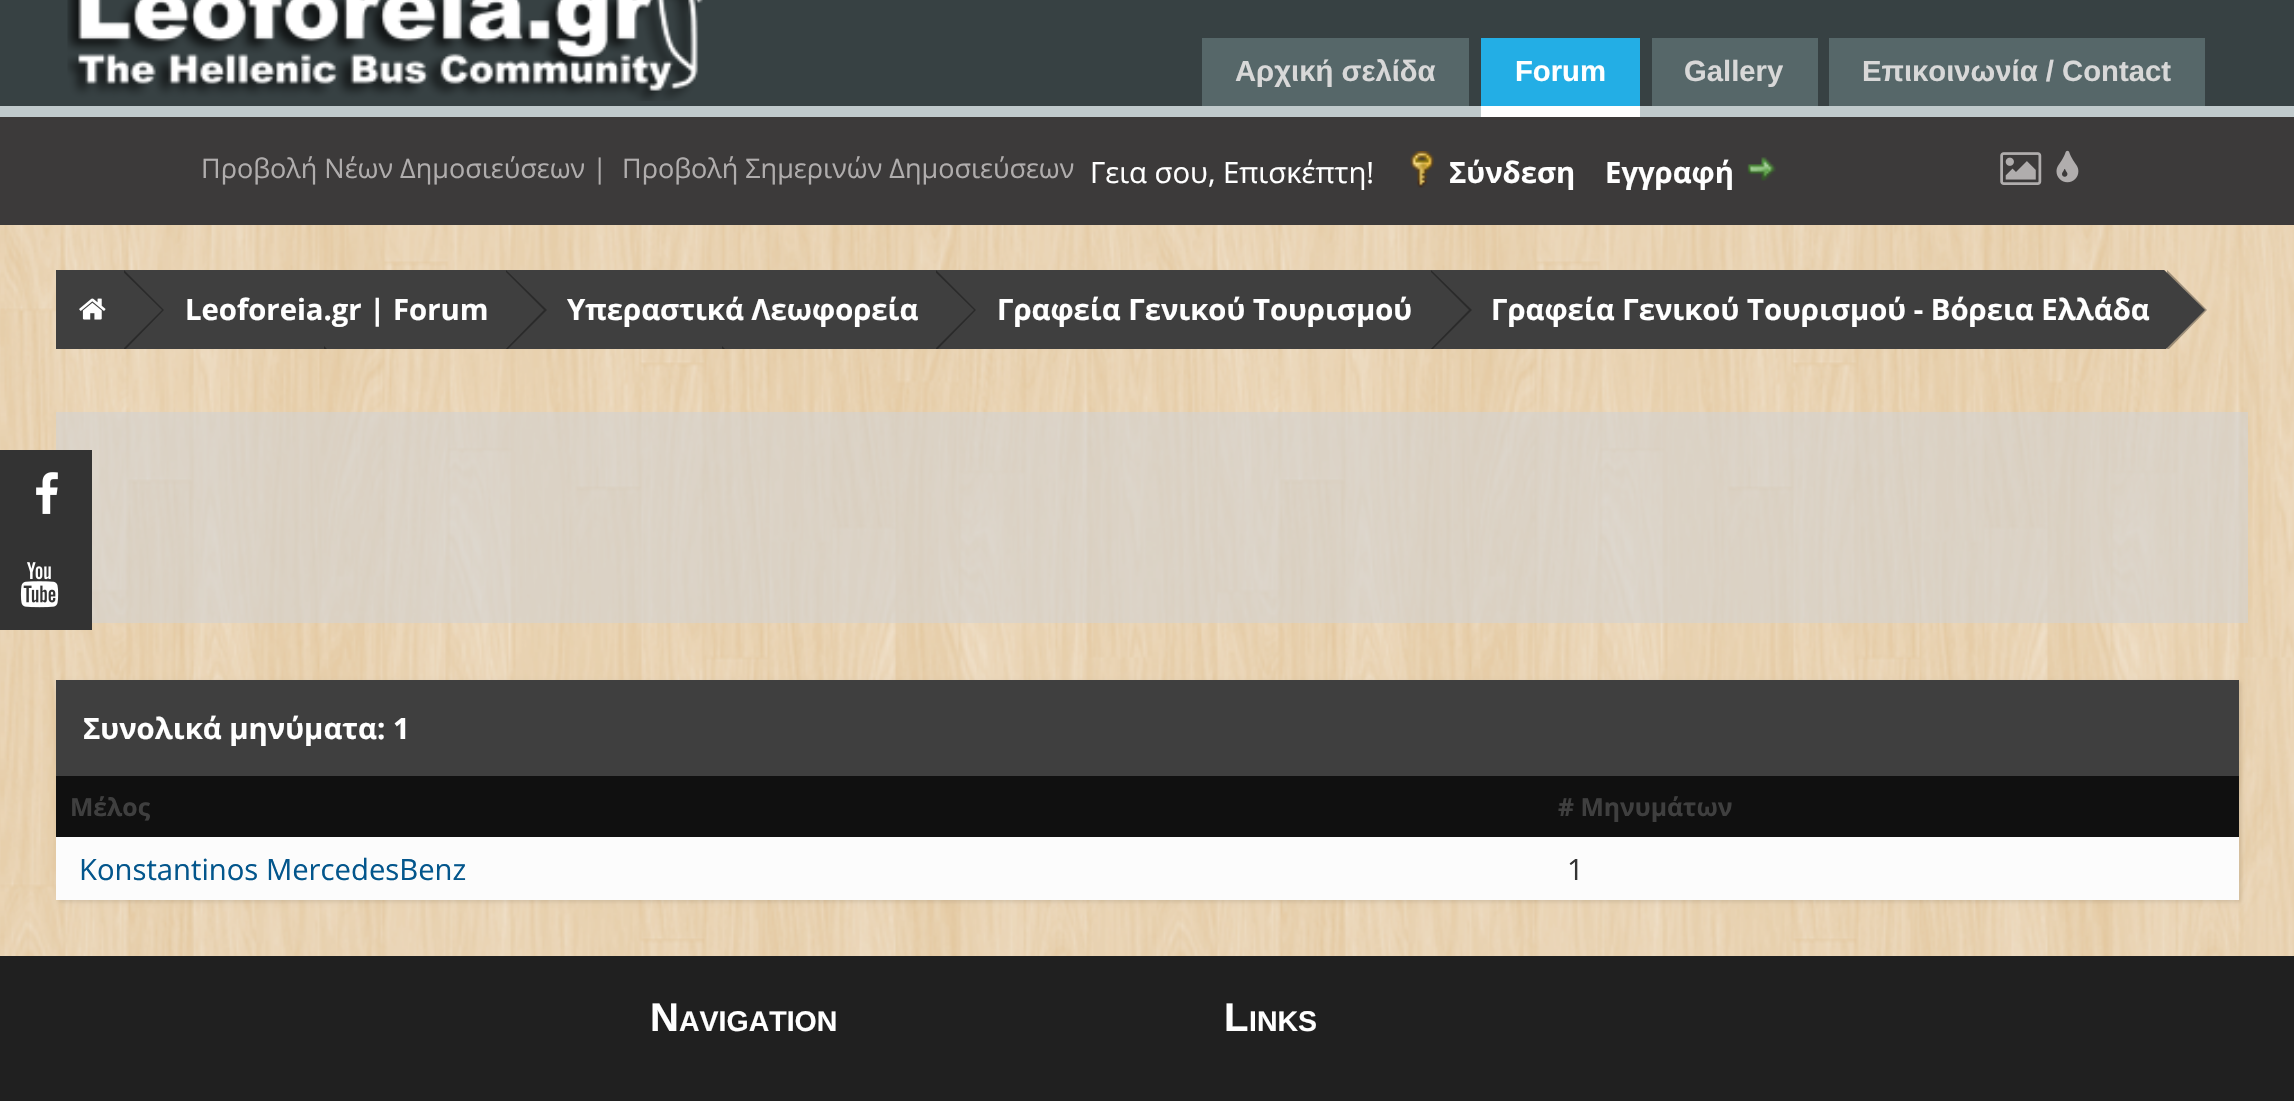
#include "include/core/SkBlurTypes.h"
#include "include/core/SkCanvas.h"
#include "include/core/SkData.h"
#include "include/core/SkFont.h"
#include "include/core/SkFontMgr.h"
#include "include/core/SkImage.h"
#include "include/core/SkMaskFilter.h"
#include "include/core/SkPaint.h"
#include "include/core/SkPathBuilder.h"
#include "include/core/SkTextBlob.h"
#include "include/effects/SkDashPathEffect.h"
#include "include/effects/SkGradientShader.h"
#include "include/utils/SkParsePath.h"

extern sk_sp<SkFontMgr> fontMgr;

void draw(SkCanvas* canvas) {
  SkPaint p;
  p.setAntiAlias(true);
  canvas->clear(SK_ColorWHITE);
  canvas->drawImageRect(SkImages::DeferredFromEncodedData(SkData::MakeFromFileName("images/1.png")), SkRect::MakeLTRB(0, 225, 2294, 956), SkSamplingOptions());
  p.setColor(SkColorSetARGB(153, 210, 210, 210));
  canvas->drawRect(SkRect::MakeLTRB(56, 412, 2248, 623), p);
  p.setColor(SkColorSetRGB(51, 51, 51));
  canvas->drawRect(SkRect::MakeLTRB(0, 450, 92, 630), p);
  canvas->drawImageRect(SkImages::DeferredFromEncodedData(SkData::MakeFromFileName("images/2.png")), SkRect::MakeLTRB(36, 472, 58, 514), SkSamplingOptions());
  p.setColor(SkColorSetRGB(55, 65, 67));
  canvas->drawRect(SkRect::MakeLTRB(0, 0, 2294, 106), p);
  p.setColor(SkColorSetRGB(192, 202, 204));
  canvas->drawRect(SkRect::MakeLTRB(0, 106, 2294, 117), p);
  canvas->drawImageRect(SkImages::DeferredFromEncodedData(SkData::MakeFromFileName("images/3.png")), SkRect::MakeLTRB(67, 0, 703, 101), SkSamplingOptions());
  p.setColor(SkColorSetRGB(86, 103, 105));
  canvas->drawRect(SkRect::MakeLTRB(1202, 38, 1469, 106), p);
  p.setColor(SkColorSetRGB(35, 174, 229));
  canvas->drawRect(SkRect::MakeLTRB(1481, 38, 1640, 106), p);
  p.setColor(SK_ColorWHITE);
  canvas->drawRect(SkRect::MakeLTRB(1481, 106, 1640, 117), p);
  p.setColor(SkColorSetRGB(86, 103, 105));
  canvas->drawRect(SkRect::MakeLTRB(1652, 38, 1818, 106), p);
  canvas->drawRect(SkRect::MakeLTRB(1829, 38, 2205, 106), p);
  p.setColor(SkColorSetRGB(60, 58, 58));
  canvas->drawRect(SkRect::MakeLTRB(0, 117, 2294, 225), p);
  canvas->drawImageRect(SkImages::DeferredFromEncodedData(SkData::MakeFromFileName("images/4.png")), SkRect::MakeLTRB(1410, 151, 1434, 188), SkSamplingOptions());
  canvas->drawImageRect(SkImages::DeferredFromEncodedData(SkData::MakeFromFileName("images/5.png")), SkRect::MakeLTRB(1747, 157, 1776, 181), SkSamplingOptions());
  canvas->drawImageRect(SkImages::DeferredFromEncodedData(SkData::MakeFromFileName("images/6.png")), SkRect::MakeLTRB(2000, 152, 2042, 185), SkSamplingOptions());
  canvas->drawImageRect(SkImages::DeferredFromEncodedData(SkData::MakeFromFileName("images/7.png")), SkRect::MakeLTRB(2056, 150, 2079, 183), SkSamplingOptions());
  p.setColor(SkColorSetRGB(63, 63, 63));
  canvas->drawRect(SkRect::MakeLTRB(56, 270, 110, 349), p);
  canvas->drawImageRect(SkImages::DeferredFromEncodedData(SkData::MakeFromFileName("images/8.png")), SkRect::MakeLTRB(79, 298, 106, 320), SkSamplingOptions());
  canvas->drawRect(SkRect::MakeLTRB(121, 270, 493, 349), p);
  canvas->save();
  canvas->clipRect(SkRect::MakeLTRB(56, 270, 2239, 349));
  p.setColor(SkColorSetRGB(42, 42, 42));
  canvas->drawPath(SkPathBuilder().moveTo(124, 351).lineTo(124, 270).lineTo(164, 310).close().detach(), p);
  p.setColor(SkColorSetRGB(63, 63, 63));
  canvas->drawPath(SkPathBuilder().moveTo(110, 362).lineTo(110, 259).lineTo(162, 310).close().detach(), p);
  canvas->restore();
  canvas->drawRect(SkRect::MakeLTRB(504, 270, 922, 349), p);
  canvas->save();
  canvas->clipRect(SkRect::MakeLTRB(56, 270, 2239, 349));
  p.setColor(SkColorSetRGB(42, 42, 42));
  canvas->drawPath(SkPathBuilder().moveTo(506, 351).lineTo(506, 270).lineTo(547, 310).close().detach(), p);
  p.setColor(SkColorSetRGB(63, 63, 63));
  canvas->drawPath(SkPathBuilder().moveTo(493, 362).lineTo(493, 259).lineTo(544, 310).close().detach(), p);
  canvas->restore();
  canvas->drawRect(SkRect::MakeLTRB(933, 270, 1418, 349), p);
  canvas->save();
  canvas->clipRect(SkRect::MakeLTRB(56, 270, 2239, 349));
  p.setColor(SkColorSetRGB(42, 42, 42));
  canvas->drawPath(SkPathBuilder().moveTo(936, 351).lineTo(936, 270).lineTo(976, 310).close().detach(), p);
  p.setColor(SkColorSetRGB(63, 63, 63));
  canvas->drawPath(SkPathBuilder().moveTo(922, 362).lineTo(922, 259).lineTo(974, 310).close().detach(), p);
  canvas->restore();
  canvas->drawRect(SkRect::MakeLTRB(1429, 270, 2153, 349), p);
  canvas->save();
  canvas->clipRect(SkRect::MakeLTRB(56, 270, 2239, 349));
  p.setColor(SkColorSetRGB(42, 42, 42));
  canvas->drawPath(SkPathBuilder().moveTo(1431, 351).lineTo(1431, 270).lineTo(1472, 310).close().detach(), p);
  p.setColor(SkColorSetRGB(63, 63, 63));
  canvas->drawPath(SkPathBuilder().moveTo(1418, 362).lineTo(1418, 259).lineTo(1469, 310).close().detach(), p);
  p.setColor(SkColorSetARGB(84, 0, 0, 0));
  canvas->drawPath(SkPathBuilder().moveTo(2167, 351).lineTo(2167, 270).lineTo(2207, 310).close().detach(), p);
  p.setColor(SkColorSetRGB(63, 63, 63));
  canvas->drawPath(SkPathBuilder().moveTo(2153, 362).lineTo(2153, 259).lineTo(2205, 310).close().detach(), p);
  p.setColor(SkColorSetRGB(42, 42, 42));
  canvas->drawPath(SkPathBuilder().moveTo(324, 428).lineTo(324, 346).lineTo(364, 387).close().detach(), p);
  canvas->drawPath(SkPathBuilder().moveTo(722, 428).lineTo(722, 346).lineTo(763, 387).close().detach(), p);
  p.setColor(SkColorSetRGB(63, 63, 63));
  canvas->drawPath(SkPathBuilder().moveTo(709, 439).lineTo(709, 335).lineTo(760, 387).close().detach(), p);
  canvas->restore();
  p.setColor(SkColorSetARGB(26, 0, 0, 0));
  p.setMaskFilter(SkMaskFilter::MakeBlur(kNormal_SkBlurStyle, 2));
  canvas->drawRect(SkRect::MakeLTRB(59, 682, 2241, 902), p);
  p.setMaskFilter(nullptr);
  p.setColor(SkColorSetRGB(63, 63, 63));
  canvas->drawRect(SkRect::MakeLTRB(56, 680, 2239, 776), p);
  canvas->drawRect(SkRect::MakeLTRB(56, 776, 2239, 837), p);
  p.setColor(SkColorSetARGB(191, 0, 0, 0));
  canvas->drawRect(SkRect::MakeLTRB(56, 776, 1546, 837), p);
  canvas->drawRect(SkRect::MakeLTRB(1546, 776, 2239, 837), p);
  p.setColor(SkColorSetRGB(252, 252, 252));
  canvas->drawRect(SkRect::MakeLTRB(56, 837, 2239, 900), p);
  p.setColor(SkColorSetRGB(32, 32, 32));
  canvas->drawRect(SkRect::MakeLTRB(0, 956, 2294, 1101), p);
  canvas->drawImageRect(SkImages::DeferredFromEncodedData(SkData::MakeFromFileName("images/9.png")), SkRect::MakeLTRB(20, 562, 59, 608), SkSamplingOptions());
  SkFont font1(fontMgr->matchFamilyStyle("Liberation Sans", SkFontStyle::Bold()), 29.25f);
  font1.setSubpixel(true);
  p.setColor(SkColorSetRGB(216, 216, 216));
  canvas->drawString("Αρχική σελίδα", 1235, 81, font1, p);
  p.setColor(SK_ColorWHITE);
  canvas->drawString("Forum", 1515, 81, font1, p);
  p.setColor(SkColorSetRGB(216, 216, 216));
  canvas->drawString("Gallery", 1684, 81, font1, p);
  canvas->drawString("Επικοινωνία / Contact", 1862, 81, font1, p);
  SkFont font2(fontMgr->matchFamilyStyle("Open Sans", SkFontStyle::Normal()), 27);
  font2.setSubpixel(true);
  p.setColor(SkColorSetRGB(176, 173, 173));
  canvas->drawString("Προβολή Νέων Δημοσιεύσεων |", 201, 178, font2, p);
  canvas->drawString("Προβολή Σημερινών Δημοσιεύσεων", 622, 178, font2, p);
  SkFont font3(fontMgr->matchFamilyStyle("Open Sans", SkFontStyle::Normal()), 29.25f);
  font3.setSubpixel(true);
  p.setColor(SK_ColorWHITE);
  canvas->drawString("Γεια σου, Επισκέπτη!", 1090, 183, font3, p);
  SkFont font4(fontMgr->matchFamilyStyle("Open Sans", SkFontStyle::Bold()), 29.25f);
  font4.setSubpixel(true);
  canvas->drawString("Σύνδεση", 1449, 183, font4, p);
  canvas->drawString("Εγγραφή", 1605, 183, font4, p);
  canvas->drawString("Leoforeia.gr | Forum", 185, 320, font4, p);
  canvas->drawString("Υπεραστικά Λεωφορεία", 567, 320, font4, p);
  canvas->drawString("Γραφεία Γενικού Τουρισμού", 997, 320, font4, p);
  canvas->drawString("Γραφεία Γενικού Τουρισμού - Βόρεια Ελλάδα", 1491, 320, font4, p);
  canvas->drawString("Συνολικά μηνύματα: 1", 83, 739, font4, p);
  SkFont font5(fontMgr->matchFamilyStyle("Open Sans", SkFontStyle::Bold()), 24.75f);
  font5.setSubpixel(true);
  p.setColor(SkColorSetRGB(63, 63, 63));
  canvas->drawString("Μέλος", 70, 816, font5, p);
  canvas->drawString("# Μηνυμάτων", 1558, 816, font5, p);
  p.setColor(SkColorSetRGB(3, 86, 140));
  canvas->drawString("Konstantinos MercedesBenz", 79, 880, font3, p);
  p.setColor(SkColorSetRGB(51, 51, 51));
  canvas->drawString("1", 1567, 880, font3, p);
  SkFont font6(fontMgr->matchFamilyStyle("Liberation Sans", SkFontStyle::Bold()), 40);
  font6.setSubpixel(true);
  p.setColor(SK_ColorWHITE);
  canvas->drawString("N", 650, 1031, font6, p);
  SkFont font7(fontMgr->matchFamilyStyle("Liberation Sans", SkFontStyle::Bold()), 28.5f);
  font7.setSubpixel(true);
  canvas->drawString("AVIGATION", 679, 1031, font7, p);
  canvas->drawString("L", 1224, 1031, font6, p);
  canvas->drawString("INKS", 1249, 1031, font7, p);
}
